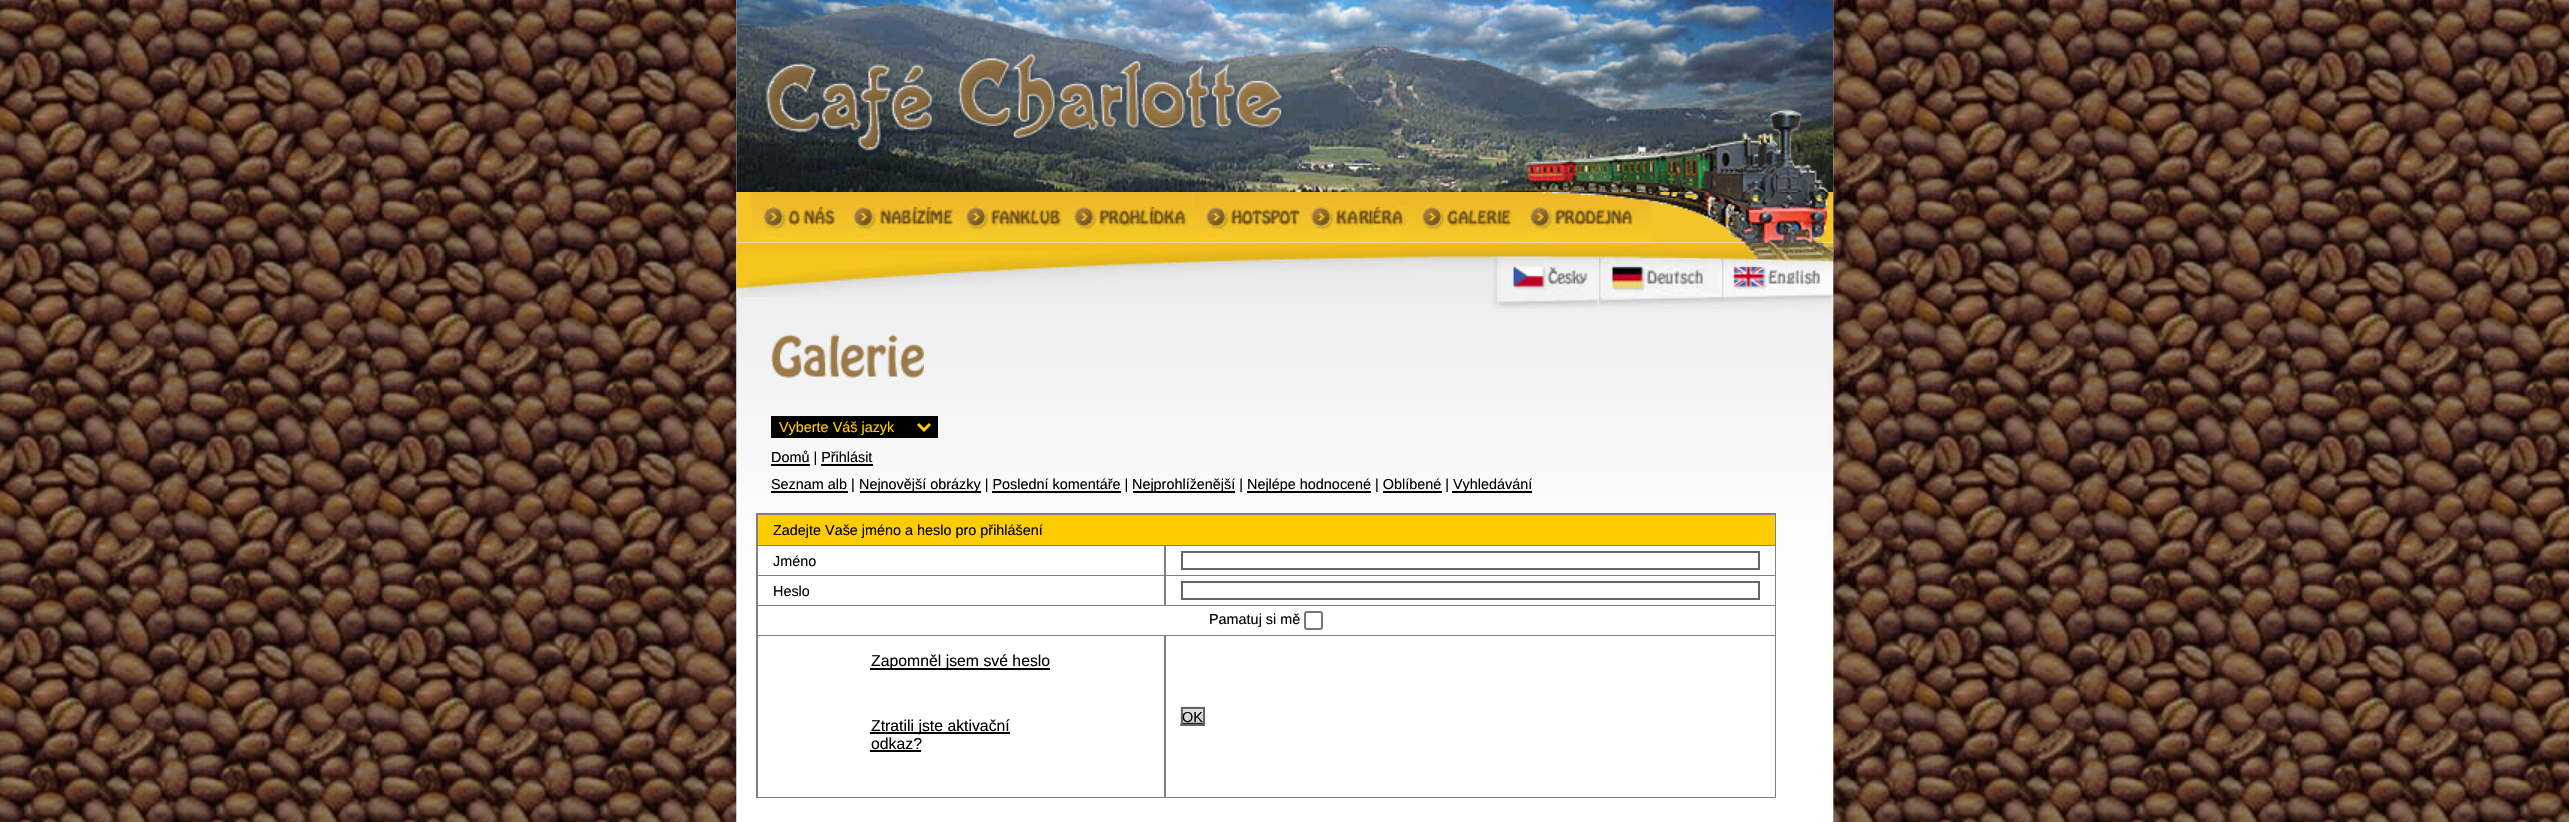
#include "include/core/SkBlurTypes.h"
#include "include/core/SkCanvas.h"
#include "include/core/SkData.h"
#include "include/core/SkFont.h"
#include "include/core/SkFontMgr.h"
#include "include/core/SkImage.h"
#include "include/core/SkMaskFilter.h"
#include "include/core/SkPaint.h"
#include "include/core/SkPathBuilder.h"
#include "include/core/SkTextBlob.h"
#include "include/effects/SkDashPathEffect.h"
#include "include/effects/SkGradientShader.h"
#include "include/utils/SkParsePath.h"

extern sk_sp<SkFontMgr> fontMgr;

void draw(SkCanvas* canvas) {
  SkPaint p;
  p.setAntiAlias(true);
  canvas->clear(SK_ColorWHITE);
  canvas->drawImageRect(SkImages::DeferredFromEncodedData(SkData::MakeFromFileName("images/1.png")), SkRect::MakeLTRB(0, 0, 2569, 822), SkSamplingOptions());
  canvas->drawImageRect(SkImages::DeferredFromEncodedData(SkData::MakeFromFileName("images/2.png")), SkRect::MakeLTRB(736, 0, 1834, 822), SkSamplingOptions());
  canvas->drawImageRect(SkImages::DeferredFromEncodedData(SkData::MakeFromFileName("images/3.png")), SkRect::MakeLTRB(736, 0, 1833, 192), SkSamplingOptions());
  canvas->drawImageRect(SkImages::DeferredFromEncodedData(SkData::MakeFromFileName("images/4.png")), SkRect::MakeLTRB(736, 192, 1834, 822), SkSamplingOptions());
  p.setColor(SkColorSetRGB(244, 197, 40));
  canvas->drawRect(SkRect::MakeLTRB(737, 192, 1833, 242), p);
  p.setColor(SkColorSetRGB(248, 224, 158));
  canvas->drawRect(SkRect::MakeLTRB(737, 242, 1833, 243), p);
  canvas->drawImageRect(SkImages::DeferredFromEncodedData(SkData::MakeFromFileName("images/5.png")), SkRect::MakeLTRB(751, 192, 840, 242), SkSamplingOptions());
  canvas->drawImageRect(SkImages::DeferredFromEncodedData(SkData::MakeFromFileName("images/6.png")), SkRect::MakeLTRB(840, 192, 960, 242), SkSamplingOptions());
  canvas->drawImageRect(SkImages::DeferredFromEncodedData(SkData::MakeFromFileName("images/7.png")), SkRect::MakeLTRB(960, 192, 1068, 242), SkSamplingOptions());
  canvas->drawImageRect(SkImages::DeferredFromEncodedData(SkData::MakeFromFileName("images/8.png")), SkRect::MakeLTRB(1068, 192, 1193, 242), SkSamplingOptions());
  canvas->drawImageRect(SkImages::DeferredFromEncodedData(SkData::MakeFromFileName("images/9.png")), SkRect::MakeLTRB(1193, 192, 1305, 242), SkSamplingOptions());
  canvas->drawImageRect(SkImages::DeferredFromEncodedData(SkData::MakeFromFileName("images/10.png")), SkRect::MakeLTRB(1305, 192, 1410, 242), SkSamplingOptions());
  canvas->drawImageRect(SkImages::DeferredFromEncodedData(SkData::MakeFromFileName("images/11.png")), SkRect::MakeLTRB(1410, 192, 1517, 242), SkSamplingOptions());
  canvas->drawImageRect(SkImages::DeferredFromEncodedData(SkData::MakeFromFileName("images/12.png")), SkRect::MakeLTRB(1516, 192, 1652, 242), SkSamplingOptions());
  canvas->drawImageRect(SkImages::DeferredFromEncodedData(SkData::MakeFromFileName("images/13.png")), SkRect::MakeLTRB(1543, 192, 1829, 243), SkSamplingOptions());
  canvas->drawImageRect(SkImages::DeferredFromEncodedData(SkData::MakeFromFileName("images/14.png")), SkRect::MakeLTRB(736, 243, 1833, 297), SkSamplingOptions());
  canvas->drawImageRect(SkImages::DeferredFromEncodedData(SkData::MakeFromFileName("images/15.png")), SkRect::MakeLTRB(1491, 255, 1598, 309), SkSamplingOptions());
  canvas->drawImageRect(SkImages::DeferredFromEncodedData(SkData::MakeFromFileName("images/16.png")), SkRect::MakeLTRB(1599, 255, 1722, 309), SkSamplingOptions());
  canvas->drawImageRect(SkImages::DeferredFromEncodedData(SkData::MakeFromFileName("images/17.png")), SkRect::MakeLTRB(1722, 255, 1832, 309), SkSamplingOptions());
  canvas->drawImageRect(SkImages::DeferredFromEncodedData(SkData::MakeFromFileName("images/18.png")), SkRect::MakeLTRB(771, 334, 924, 378), SkSamplingOptions());
  p.setColor(SK_ColorBLACK);
  canvas->drawRect(SkRect::MakeLTRB(771, 416, 938, 438), p);
  p.setStyle(SkPaint::kStroke_Style);
  p.setStrokeWidth(3);
  p.setColor(SkColorSetRGB(255, 204, 0));
  canvas->drawPath(SkPathBuilder().moveTo(918, 424).lineTo(924, 430).lineTo(930, 424).detach(), p);
  p.setStyle(SkPaint::kFill_Style);
  p.setColor(SK_ColorBLACK);
  canvas->drawRect(SkRect::MakeLTRB(771, 464, 810, 466), p);
  canvas->drawRect(SkRect::MakeLTRB(821, 464, 873, 466), p);
  canvas->drawRect(SkRect::MakeLTRB(771, 491, 848, 493), p);
  canvas->drawRect(SkRect::MakeLTRB(860, 491, 981, 493), p);
  canvas->drawRect(SkRect::MakeLTRB(1133, 491, 1235, 493), p);
  canvas->drawRect(SkRect::MakeLTRB(1247, 491, 1371, 493), p);
  canvas->drawRect(SkRect::MakeLTRB(1452, 491, 1532, 493), p);
  canvas->drawRect(SkRect::MakeLTRB(992, 491, 1121, 493), p);
  canvas->drawRect(SkRect::MakeLTRB(1383, 491, 1442, 493), p);
  p.setColor(SkColorSetRGB(127, 127, 127));
  canvas->drawRect(SkRect::MakeLTRB(756, 513, 1776, 798), p);
  p.setColor(SkColorSetRGB(255, 204, 0));
  canvas->drawRect(SkRect::MakeLTRB(758, 515, 1775, 545), p);
  p.setColor(SK_ColorWHITE);
  canvas->drawRect(SkRect::MakeLTRB(758, 546, 1164, 575), p);
  canvas->drawRect(SkRect::MakeLTRB(1166, 546, 1775, 575), p);
  p.setStyle(SkPaint::kStroke_Style);
  p.setStrokeWidth(2);
  p.setColor(SkColorSetRGB(102, 102, 102));
  canvas->drawRect(SkRect::MakeLTRB(1182, 552, 1759, 569), p);
  p.setStyle(SkPaint::kFill_Style);
  p.setColor(SK_ColorWHITE);
  canvas->drawRect(SkRect::MakeLTRB(758, 576, 1164, 605), p);
  canvas->drawRect(SkRect::MakeLTRB(1166, 576, 1775, 605), p);
  p.setStyle(SkPaint::kStroke_Style);
  p.setColor(SkColorSetRGB(102, 102, 102));
  canvas->drawRect(SkRect::MakeLTRB(1182, 582, 1759, 599), p);
  p.setStyle(SkPaint::kFill_Style);
  p.setColor(SK_ColorWHITE);
  canvas->drawRect(SkRect::MakeLTRB(758, 606, 1775, 635), p);
  p.setStyle(SkPaint::kStroke_Style);
  p.setColor(SkColorSetRGB(118, 118, 118));
  canvas->drawRoundRect(SkRect::MakeLTRB(1305, 612, 1322, 629), 2, 2, p);
  p.setStyle(SkPaint::kFill_Style);
  p.setColor(SK_ColorWHITE);
  canvas->drawRect(SkRect::MakeLTRB(758, 636, 1164, 797), p);
  p.setColor(SK_ColorBLACK);
  canvas->drawRect(SkRect::MakeLTRB(870, 668, 1050, 670), p);
  canvas->drawRect(SkRect::MakeLTRB(870, 732, 1010, 734), p);
  canvas->drawRect(SkRect::MakeLTRB(870, 750, 921, 752), p);
  p.setColor(SK_ColorWHITE);
  canvas->drawRect(SkRect::MakeLTRB(1166, 636, 1775, 797), p);
  canvas->drawImageRect(SkImages::DeferredFromEncodedData(SkData::MakeFromFileName("images/19.png")), SkRect::MakeLTRB(1180, 706, 1205, 726), SkSamplingOptions());
  p.setStyle(SkPaint::kStroke_Style);
  p.setColor(SkColorSetRGB(102, 102, 102));
  canvas->drawRect(SkRect::MakeLTRB(1182, 708, 1204, 725), p);
  SkFont font1(fontMgr->matchFamilyStyle("Liberation Sans", SkFontStyle::Normal()), 14.4f);
  font1.setSubpixel(true);
  p.setStyle(SkPaint::kFill_Style);
  p.setColor(SkColorSetRGB(255, 204, 0));
  canvas->drawString("Vyberte Váš jazyk", 779, 432, font1, p);
  p.setColor(SK_ColorBLACK);
  canvas->drawString("Domů | Přihlásit", 771, 462, font1, p);
  canvas->drawString("Seznam alb |", 771, 489, font1, p);
  canvas->drawString("Nejnovější obrázky | Poslední komentáře |", 859, 489, font1, p);
  canvas->drawString("Nejprohlíženější |", 1132, 489, font1, p);
  canvas->drawString("Nejlépe hodnocené | Oblíbené |", 1247, 489, font1, p);
  canvas->drawString("Vyhledávání", 1453, 489, font1, p);
  canvas->drawString("Zadejte Vaše jméno a heslo pro přihlášení", 773, 535, font1, p);
  canvas->drawString("Jméno", 773, 566, font1, p);
  canvas->drawString("Heslo", 773, 596, font1, p);
  canvas->drawString("Pamatuj si mě", 1209, 624, font1, p);
  SkFont font2(fontMgr->matchFamilyStyle("Liberation Sans", SkFontStyle::Normal()), 15.8f);
  font2.setSubpixel(true);
  canvas->drawString("Zapomněl jsem své heslo", 871, 666, font2, p);
  canvas->drawString("Ztratili jste aktivační", 871, 731, font2, p);
  canvas->drawString("odkaz?", 871, 749, font2, p);
  canvas->drawString("OK", 1182, 722, font1, p);
}
